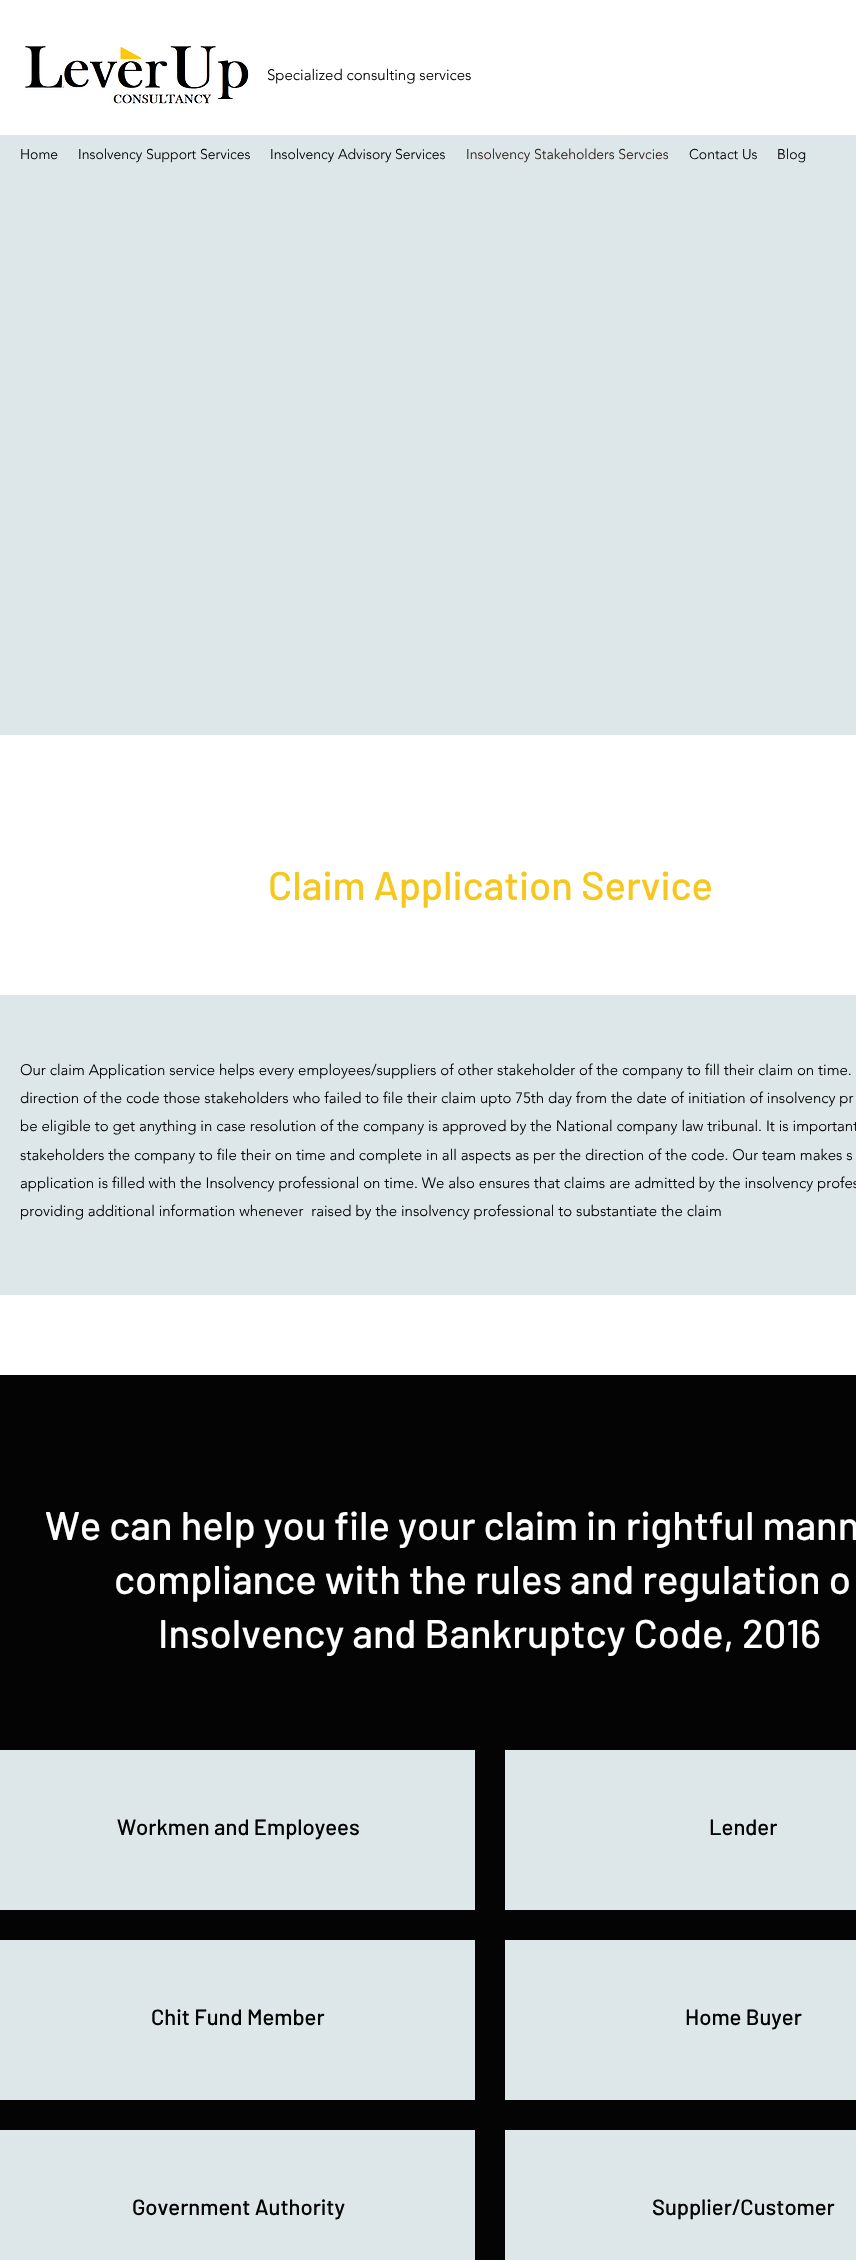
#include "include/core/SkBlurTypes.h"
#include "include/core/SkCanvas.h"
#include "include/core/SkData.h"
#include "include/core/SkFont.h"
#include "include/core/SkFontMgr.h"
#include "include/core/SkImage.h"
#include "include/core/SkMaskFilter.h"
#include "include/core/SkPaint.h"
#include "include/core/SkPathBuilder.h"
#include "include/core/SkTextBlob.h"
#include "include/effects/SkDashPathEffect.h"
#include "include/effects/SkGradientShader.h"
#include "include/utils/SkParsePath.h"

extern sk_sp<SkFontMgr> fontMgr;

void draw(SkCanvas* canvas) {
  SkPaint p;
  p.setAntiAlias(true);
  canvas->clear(SK_ColorWHITE);
  canvas->drawImageRect(SkImages::DeferredFromEncodedData(SkData::MakeFromFileName("images/1.png")), SkRect::MakeLTRB(25, 46, 250, 104), SkSamplingOptions());
  p.setColor(SkColorSetRGB(221, 230, 232));
  canvas->drawRect(SkRect::MakeLTRB(0, 135, 856, 735), p);
  canvas->drawRect(SkRect::MakeLTRB(0, 995, 856, 1295), p);
  p.setColor(SkColorSetRGB(4, 4, 5));
  canvas->drawRect(SkRect::MakeLTRB(0, 1375, 856, 2260), p);
  p.setColor(SkColorSetRGB(221, 230, 232));
  canvas->drawRect(SkRect::MakeLTRB(0, 1750, 475, 1910), p);
  canvas->drawRect(SkRect::MakeLTRB(505, 1750, 856, 1910), p);
  canvas->drawRect(SkRect::MakeLTRB(0, 1940, 475, 2100), p);
  canvas->drawRect(SkRect::MakeLTRB(505, 1940, 856, 2100), p);
  canvas->drawRect(SkRect::MakeLTRB(0, 2130, 475, 2260), p);
  canvas->drawRect(SkRect::MakeLTRB(505, 2130, 856, 2260), p);
  SkFont font1(fontMgr->matchFamilyStyle("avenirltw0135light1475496", SkFontStyle(300, SkFontStyle::kNormal_Width, SkFontStyle::kUpright_Slant)), 15);
  font1.setSubpixel(true);
  p.setColor(SkColorSetRGB(4, 4, 5));
  canvas->drawString("Specialized consulting services", 267, 80, font1, p);
  SkFont font2(fontMgr->matchFamilyStyle("avenirltw0135light1475496", SkFontStyle(300, SkFontStyle::kNormal_Width, SkFontStyle::kUpright_Slant)), 14);
  font2.setSubpixel(true);
  canvas->drawString("Home", 20, 159, font2, p);
  canvas->drawString("Insolvency Support Services", 78, 159, font2, p);
  canvas->drawString("Insolvency Advisory Services", 270, 159, font2, p);
  p.setColor(SkColorSetRGB(47, 32, 24));
  canvas->drawString("Insolvency Stakeholders Servcies", 466, 159, font2, p);
  p.setColor(SkColorSetRGB(4, 4, 5));
  canvas->drawString("Contact Us", 689, 159, font2, p);
  canvas->drawString("Blog", 777, 159, font2, p);
  SkFont font3(fontMgr->matchFamilyStyle("Barlow", SkFontStyle(500, SkFontStyle::kNormal_Width, SkFontStyle::kUpright_Slant)), 40);
  font3.setSubpixel(true);
  p.setColor(SkColorSetRGB(246, 199, 30));
  canvas->drawString("Claim Application Service", 268, 900, font3, p);
  p.setColor(SkColorSetRGB(4, 4, 5));
  canvas->drawString("Our claim Application service helps every employees/suppliers of other stakeholder of the company to fill their claim on time.", 20, 1075, font1, p);
  canvas->drawString("direction of the code those stakeholders who failed to file their claim upto 75th day from the date of initiation of insolvency pr", 20, 1103, font1, p);
  canvas->drawString("be eligible to get anything in case resolution of the company is approved by the National company law tribunal. It is important", 20, 1131, font1, p);
  canvas->drawString("stakeholders the company to file their on time and complete in all aspects as per the direction of the code. Our team makes s", 20, 1160, font1, p);
  canvas->drawString("application is filled with the Insolvency professional on time. We also ensures that claims are admitted by the insolvency profes", 20, 1188, font1, p);
  canvas->drawString("providing additional information whenever  raised by the insolvency professional to substantiate the claim", 20, 1216, font1, p);
  p.setColor(SK_ColorWHITE);
  canvas->drawString("We can help you file your claim in rightful mann", 45, 1540, font3, p);
  canvas->drawString("compliance with the rules and regulation o", 114, 1594, font3, p);
  canvas->drawString("Insolvency and Bankruptcy Code, 2016", 158, 1648, font3, p);
  SkFont font4(fontMgr->matchFamilyStyle("Barlow", SkFontStyle(500, SkFontStyle::kNormal_Width, SkFontStyle::kUpright_Slant)), 22);
  font4.setSubpixel(true);
  p.setColor(SkColorSetRGB(4, 4, 5));
  canvas->drawString("Workmen and Employees", 117, 1835, font4, p);
  canvas->drawString("Lender", 709, 1835, font4, p);
  canvas->drawString("Chit Fund Member", 151, 2025, font4, p);
  canvas->drawString("Home Buyer", 685, 2025, font4, p);
  canvas->drawString("Government Authority", 132, 2215, font4, p);
  canvas->drawString("Supplier/Customer", 652, 2215, font4, p);
}
